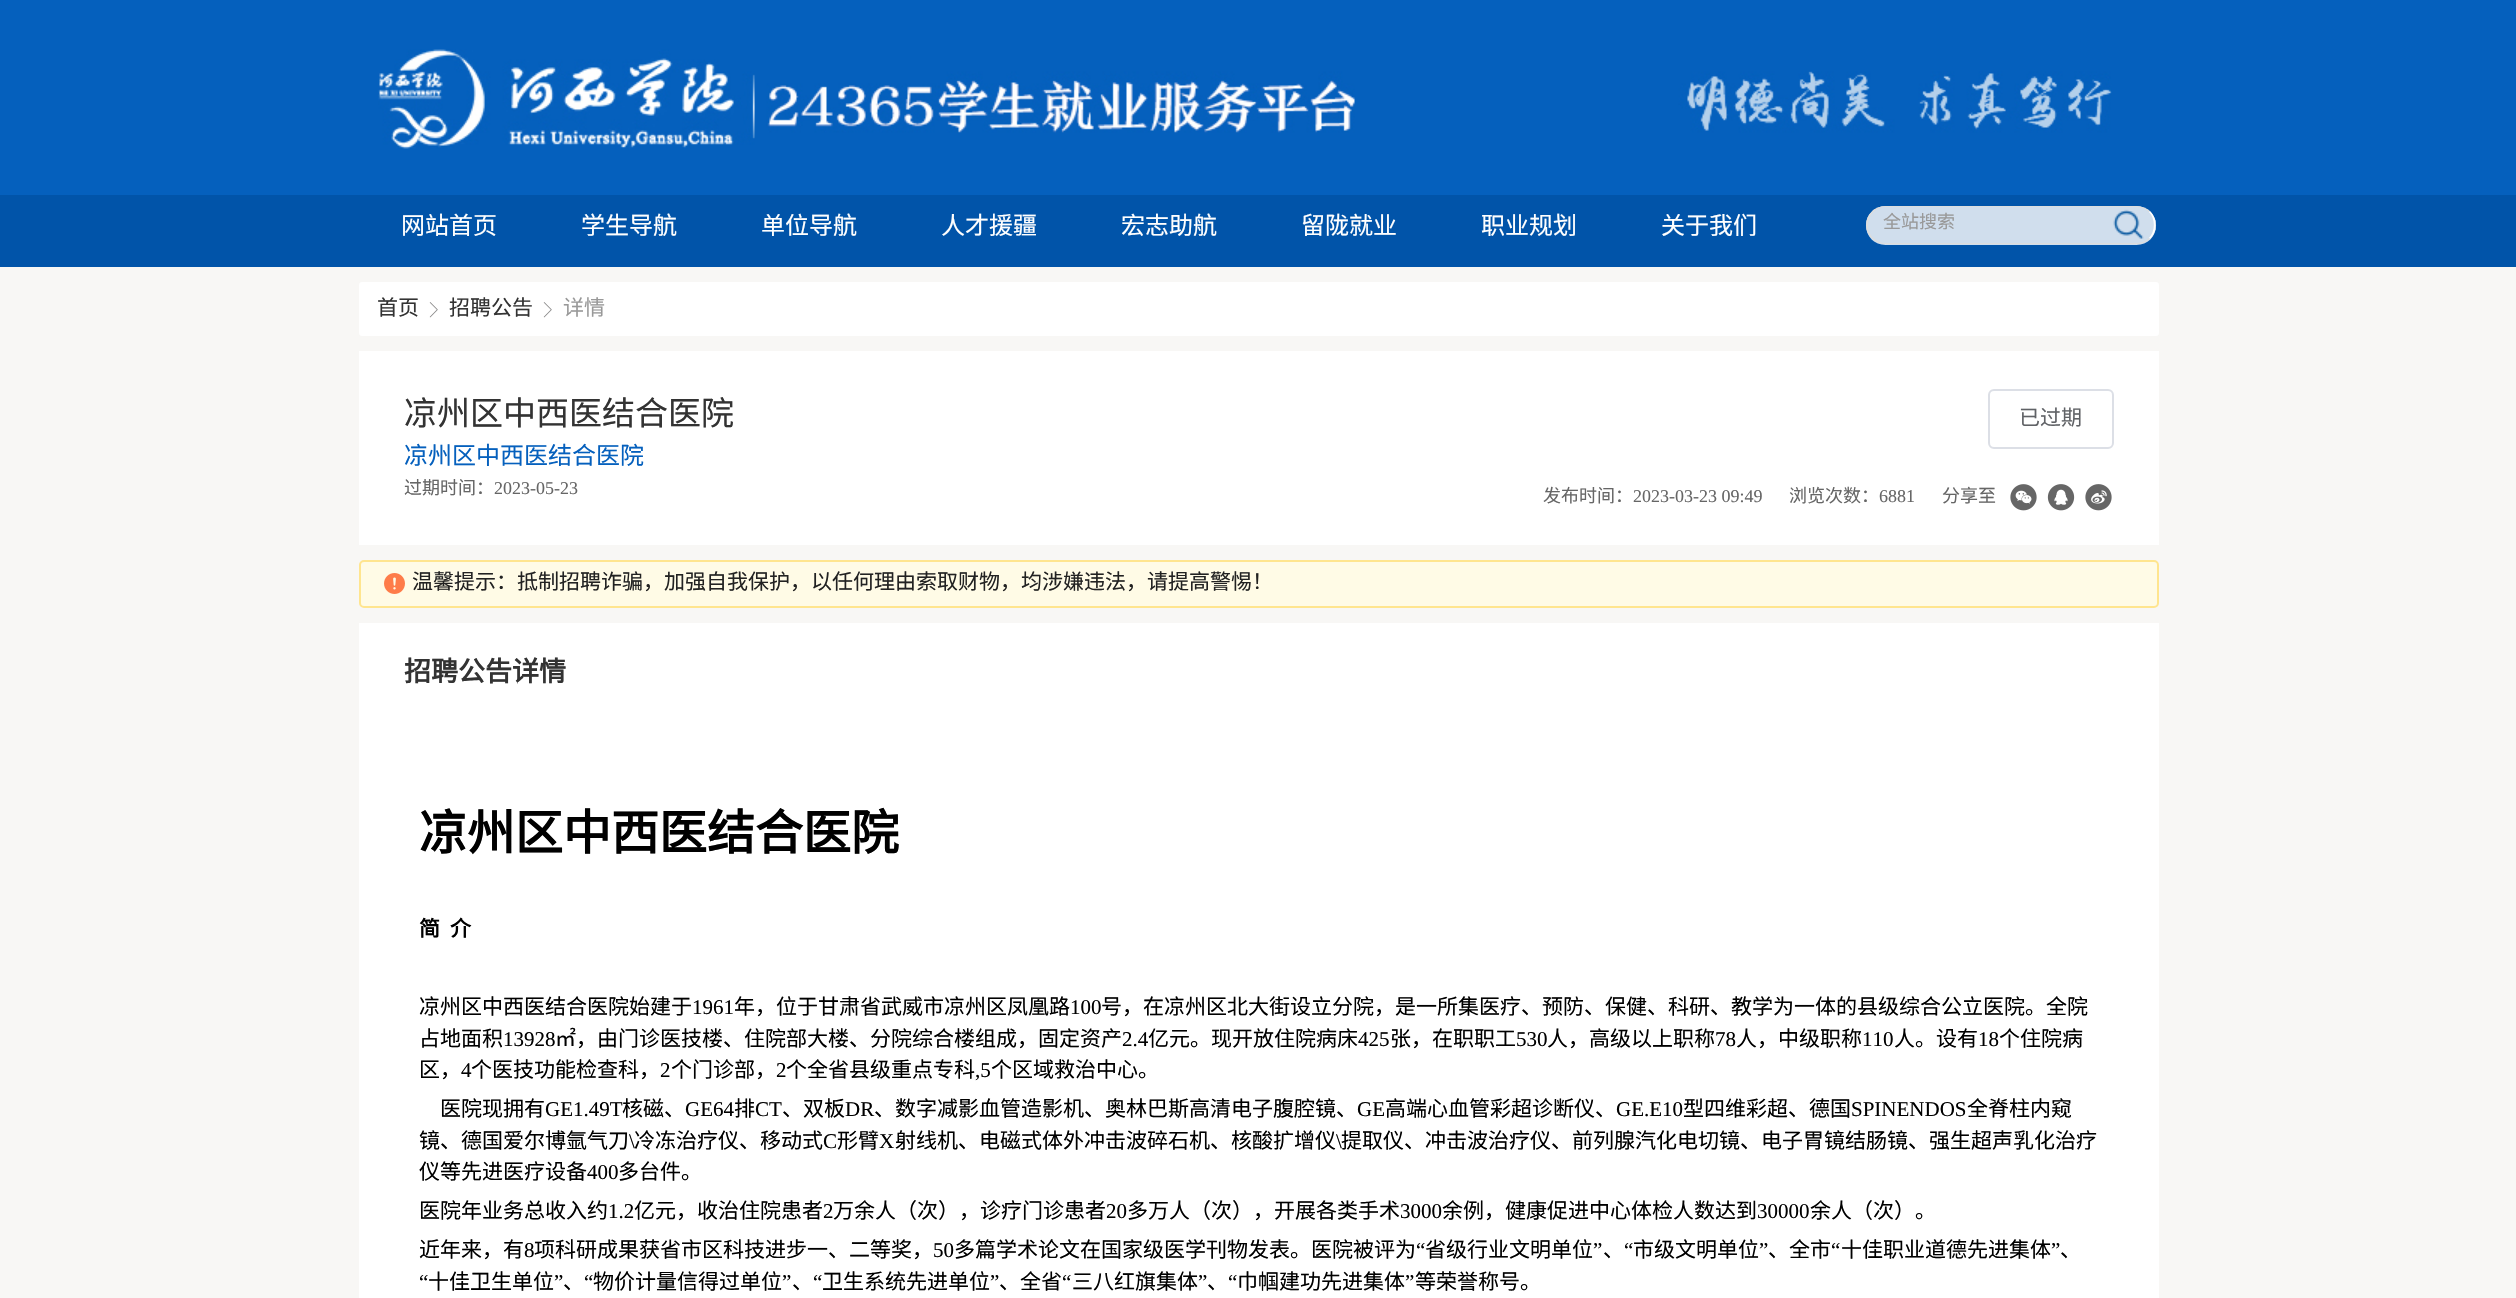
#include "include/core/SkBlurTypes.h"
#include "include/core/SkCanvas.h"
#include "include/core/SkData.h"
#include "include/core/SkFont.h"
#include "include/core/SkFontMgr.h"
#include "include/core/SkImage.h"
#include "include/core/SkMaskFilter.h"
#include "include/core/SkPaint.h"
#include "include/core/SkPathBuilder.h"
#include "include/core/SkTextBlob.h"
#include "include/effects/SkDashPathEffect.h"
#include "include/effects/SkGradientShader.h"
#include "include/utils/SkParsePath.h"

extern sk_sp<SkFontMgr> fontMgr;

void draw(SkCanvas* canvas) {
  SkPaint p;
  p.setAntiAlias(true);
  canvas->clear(SkColorSetRGB(248, 247, 245));
  p.setColor(SkColorSetRGB(5, 96, 189));
  canvas->drawRect(SkRect::MakeLTRB(0, 0, 2516, 195), p);
  canvas->drawImageRect(SkImages::DeferredFromEncodedData(SkData::MakeFromFileName("images/1.png")), SkRect::MakeLTRB(378, 49, 2112, 149), SkSamplingOptions());
  p.setColor(SkColorSetRGB(1, 84, 169));
  canvas->drawRect(SkRect::MakeLTRB(0, 195, 2516, 267), p);
  p.setColor(SkColorSetRGB(208, 222, 237));
  canvas->drawPath(SkPathBuilder().moveTo(1885.5f, 206).lineTo(2105, 206).lineTo(2105, 245).lineTo(1885.5f, 245).cubicTo(1874.5f, 245, 1866, 236.5f, 1866, 225.5f).cubicTo(1866, 214.5f, 1874.5f, 206, 1885.5f, 206).close().detach(), p);
  p.setColor(SkColorSetRGB(221, 221, 221));
  canvas->drawPath(SkPathBuilder().moveTo(1886, 206).cubicTo(1880, 206, 1876, 208, 1872, 211).lineTo(1873, 213).cubicTo(1876, 209, 1881, 207, 1886, 207).lineTo(2103, 207).lineTo(2104, 206).close().detach(), p);
  canvas->drawPath(SkPathBuilder().moveTo(2104, 244).lineTo(2103, 243).lineTo(1886, 243).cubicTo(1881, 243, 1876, 241, 1873, 237).lineTo(1872, 239).cubicTo(1876, 242, 1880, 244, 1886, 244).close().detach(), p);
  canvas->drawPath(SkPathBuilder().moveTo(1866, 225).cubicTo(1866, 230.5f, 1868, 235, 1872, 238.5f).lineTo(1873, 237.5f).cubicTo(1866.5f, 230.5f, 1866.5f, 219.5f, 1873, 212.5f).lineTo(1872, 211.5f).cubicTo(1868, 215, 1866, 219.5f, 1866, 225).close().detach(), p);
  canvas->save();
  canvas->clipPath(SkPathBuilder().moveTo(1886, 207).lineTo(2103, 207).lineTo(2103, 243).lineTo(1886, 243).cubicTo(1876, 243, 1868, 235, 1868, 225).cubicTo(1868, 215, 1876, 207, 1886, 207).close().detach(), true);
  p.setColor(SkColorSetRGB(208, 222, 237));
  canvas->drawPath(SkPathBuilder().moveTo(1886, 207).lineTo(2103, 207).lineTo(2103, 237).lineTo(1868, 237).lineTo(1868, 225).cubicTo(1868, 215, 1876, 207, 1886, 207).close().detach(), p);
  canvas->restore();
  canvas->drawPath(SkPathBuilder().moveTo(2102, 206).lineTo(2136.5f, 206).cubicTo(2147.5f, 206, 2156, 214.5f, 2156, 225.5f).cubicTo(2156, 236.5f, 2147.5f, 245, 2136.5f, 245).lineTo(2102, 245).close().detach(), p);
  p.setColor(SkColorSetRGB(221, 221, 221));
  canvas->drawPath(SkPathBuilder().moveTo(2102, 206).lineTo(2136, 206).cubicTo(2141, 206, 2146, 208, 2150, 211).lineTo(2149, 212).cubicTo(2146, 209, 2141, 207, 2136, 207).lineTo(2102, 207).close().detach(), p);
  p.setColor(SK_ColorWHITE);
  canvas->drawPath(SkPathBuilder().moveTo(2150, 211).cubicTo(2152.5f, 213.5f, 2154.5f, 217, 2155.5f, 220.5f).lineTo(2155.5f, 229.5f).cubicTo(2154.5f, 233, 2152.5f, 236.5f, 2150, 239).lineTo(2149, 238).cubicTo(2155.5f, 231, 2155.5f, 219, 2149, 212).close().detach(), p);
  p.setColor(SkColorSetRGB(221, 221, 221));
  canvas->drawPath(SkPathBuilder().moveTo(2150, 239).lineTo(2149, 238).cubicTo(2146, 241, 2141, 243, 2136, 243).lineTo(2102, 243).lineTo(2102, 244).lineTo(2136, 244).cubicTo(2141, 244, 2146, 242, 2150, 239).close().detach(), p);
  canvas->drawImageRect(SkImages::DeferredFromEncodedData(SkData::MakeFromFileName("images/2.png")), SkRect::MakeLTRB(2113, 209, 2144, 239), SkSamplingOptions());
  p.setColor(SK_ColorWHITE);
  canvas->drawRoundRect(SkRect::MakeLTRB(359, 282, 2159, 336), 3, 3, p);
  canvas->drawImageRect(SkImages::DeferredFromEncodedData(SkData::MakeFromFileName("images/3.png")), SkRect::MakeLTRB(429, 302, 438, 318), SkSamplingOptions());
  canvas->drawImageRect(SkImages::DeferredFromEncodedData(SkData::MakeFromFileName("images/3.png")), SkRect::MakeLTRB(543, 302, 552, 318), SkSamplingOptions());
  canvas->drawRect(SkRect::MakeLTRB(359, 351, 2159, 1298), p);
  p.setStyle(SkPaint::kStroke_Style);
  p.setStrokeWidth(2);
  p.setColor(SkColorSetRGB(220, 223, 230));
  canvas->drawRoundRect(SkRect::MakeLTRB(1989, 390, 2113, 448), 5, 5, p);
  canvas->drawImageRect(SkImages::DeferredFromEncodedData(SkData::MakeFromFileName("images/4.png")), SkRect::MakeLTRB(2010, 484, 2037, 511), SkSamplingOptions());
  canvas->drawImageRect(SkImages::DeferredFromEncodedData(SkData::MakeFromFileName("images/5.png")), SkRect::MakeLTRB(2047, 484, 2075, 511), SkSamplingOptions());
  canvas->drawImageRect(SkImages::DeferredFromEncodedData(SkData::MakeFromFileName("images/6.png")), SkRect::MakeLTRB(2085, 484, 2112, 511), SkSamplingOptions());
  p.setStyle(SkPaint::kFill_Style);
  p.setColor(SkColorSetRGB(248, 247, 245));
  canvas->drawRect(SkRect::MakeLTRB(359, 545, 2159, 623), p);
  p.setColor(SkColorSetRGB(255, 251, 230));
  canvas->drawRoundRect(SkRect::MakeLTRB(360, 561, 2158, 607), 4, 4, p);
  p.setStyle(SkPaint::kStroke_Style);
  p.setColor(SkColorSetRGB(255, 229, 143));
  canvas->drawRoundRect(SkRect::MakeLTRB(360, 561, 2158, 607), 4, 4, p);
  canvas->drawImageRect(SkImages::DeferredFromEncodedData(SkData::MakeFromFileName("images/7.png")), SkRect::MakeLTRB(384, 573, 405, 594), SkSamplingOptions());
  SkFont font1(fontMgr->matchFamilyStyle("Noto Sans CJK SC", SkFontStyle::Normal()), 24);
  font1.setSubpixel(true);
  p.setStyle(SkPaint::kFill_Style);
  p.setColor(SK_ColorWHITE);
  canvas->drawString("网站首页", 401, 234, font1, p);
  canvas->drawString("学生导航", 581, 234, font1, p);
  canvas->drawString("单位导航", 761, 234, font1, p);
  canvas->drawString("人才援疆", 941, 234, font1, p);
  canvas->drawString("宏志助航", 1121, 234, font1, p);
  canvas->drawString("留陇就业", 1301, 234, font1, p);
  canvas->drawString("职业规划", 1481, 234, font1, p);
  canvas->drawString("关于我们", 1661, 234, font1, p);
  SkFont font2(fontMgr->matchFamilyStyle("Noto Sans CJK SC", SkFontStyle::Normal()), 18);
  font2.setSubpixel(true);
  p.setColor(SkColorSetRGB(153, 153, 153));
  canvas->drawString("全站搜索", 1883, 228, font2, p);
  SkFont font3(fontMgr->matchFamilyStyle("Noto Sans CJK SC", SkFontStyle::Normal()), 21);
  font3.setSubpixel(true);
  p.setColor(SkColorSetRGB(51, 51, 51));
  canvas->drawString("首页", 377, 315, font3, p);
  canvas->drawString("招聘公告", 449, 315, font3, p);
  p.setColor(SkColorSetRGB(153, 153, 153));
  canvas->drawString("详情", 563, 315, font3, p);
  SkFont font4(fontMgr->matchFamilyStyle("Noto Sans CJK SC", SkFontStyle::Normal()), 33);
  font4.setSubpixel(true);
  p.setColor(SkColorSetRGB(51, 51, 51));
  canvas->drawString("凉州区中西医结合医院", 404, 425, font4, p);
  p.setColor(SkColorSetRGB(5, 96, 189));
  canvas->drawString("凉州区中西医结合医院", 404, 464, font1, p);
  p.setColor(SkColorSetRGB(102, 102, 102));
  canvas->drawString("过期时间：", 404, 494, font2, p);
  SkFont font5(fontMgr->matchFamilyStyle("Liberation Serif", SkFontStyle::Normal()), 18);
  font5.setSubpixel(true);
  canvas->drawString("2023-05-23", 494, 494, font5, p);
  p.setColor(SkColorSetRGB(96, 98, 102));
  canvas->drawString("已过期", 2019, 425, font3, p);
  p.setColor(SkColorSetRGB(102, 102, 102));
  canvas->drawString("发布时间：", 1543, 502, font2, p);
  canvas->drawString("2023-03-23 09:49", 1633, 502, font5, p);
  canvas->drawString("浏览次数：", 1789, 502, font2, p);
  canvas->drawString("6881", 1879, 502, font5, p);
  canvas->drawString("分享至", 1942, 502, font2, p);
  p.setColor(SkColorSetRGB(34, 34, 34));
  canvas->drawString("温馨提示：抵制招聘诈骗，加强自我保护，以任何理由索取财物，均涉嫌违法，请提高警惕！", 412, 589, font3, p);
  SkFont font6(fontMgr->matchFamilyStyle("Noto Sans CJK SC", SkFontStyle::Bold()), 27);
  font6.setSubpixel(true);
  p.setColor(SkColorSetRGB(51, 51, 51));
  canvas->drawString("招聘公告详情", 404, 681, font6, p);
  SkFont font7(fontMgr->matchFamilyStyle("Noto Sans CJK SC", SkFontStyle::Bold()), 48);
  font7.setSubpixel(true);
  p.setColor(SK_ColorBLACK);
  canvas->drawString("凉州区中西医结合医院", 419, 850, font7, p);
  SkFont font8(fontMgr->matchFamilyStyle("Noto Sans CJK SC", SkFontStyle::Bold()), 21);
  font8.setSubpixel(true);
  canvas->drawString("简", 419, 936, font8, p);
  canvas->drawString("介", 450, 936, font8, p);
  canvas->drawString("凉州区中西医结合医院始建于", 419, 1014, font3, p);
  SkFont font9(fontMgr->matchFamilyStyle("Liberation Serif", SkFontStyle::Normal()), 21);
  font9.setSubpixel(true);
  canvas->drawString("1961", 692, 1014, font9, p);
  canvas->drawString("年，位于甘肃省武威市凉州区凤凰路", 734, 1014, font3, p);
  canvas->drawString("100", 1070, 1014, font9, p);
  canvas->drawString("号，在凉州区北大街设立分院，是一所集医疗、预防、保健、科研、教学为一体的县级综合公立医院。全院", 1101, 1014, font3, p);
  canvas->drawString("占地面积", 419, 1046, font3, p);
  canvas->drawString("13928", 503, 1046, font9, p);
  canvas->drawString("㎡，由门诊医技楼、住院部大楼、分院综合楼组成，固定资产", 555, 1046, font3, p);
  canvas->drawString("2.4", 1122, 1046, font9, p);
  canvas->drawString("亿元。现开放住院病床", 1148, 1046, font3, p);
  canvas->drawString("425", 1358, 1046, font9, p);
  canvas->drawString("张，在职职工", 1390, 1046, font3, p);
  canvas->drawString("530", 1516, 1046, font9, p);
  canvas->drawString("人，高级以上职称", 1547, 1046, font3, p);
  canvas->drawString("78", 1715, 1046, font9, p);
  canvas->drawString("人，中级职称", 1736, 1046, font3, p);
  canvas->drawString("110", 1862, 1046, font9, p);
  canvas->drawString("人。设有", 1894, 1046, font3, p);
  canvas->drawString("18", 1978, 1046, font9, p);
  canvas->drawString("个住院病", 1999, 1046, font3, p);
  canvas->drawString("区，", 419, 1077, font3, p);
  canvas->drawString("4", 461, 1077, font9, p);
  canvas->drawString("个医技功能检查科，", 471, 1077, font3, p);
  canvas->drawString("2", 660, 1077, font9, p);
  canvas->drawString("个门诊部，", 671, 1077, font3, p);
  canvas->drawString("2", 776, 1077, font9, p);
  canvas->drawString("个全省县级重点专科", 786, 1077, font3, p);
  canvas->drawString(",5", 975, 1077, font9, p);
  canvas->drawString("个区域救治中心。", 991, 1077, font3, p);
  canvas->drawString("医院现拥有", 440, 1116, font3, p);
  canvas->drawString("GE1.49T", 545, 1116, font9, p);
  canvas->drawString("核磁、", 622, 1116, font3, p);
  canvas->drawString("GE64", 685, 1116, font9, p);
  canvas->drawString("排", 734, 1116, font3, p);
  canvas->drawString("CT", 755, 1116, font9, p);
  canvas->drawString("、双板", 782, 1116, font3, p);
  canvas->drawString("DR", 845, 1116, font9, p);
  canvas->drawString("、数字减影血管造影机、奥林巴斯高清电子腹腔镜、", 874, 1116, font3, p);
  canvas->drawString("GE", 1357, 1116, font9, p);
  canvas->drawString("高端心血管彩超诊断仪、", 1385, 1116, font3, p);
  canvas->drawString("GE.E10", 1616, 1116, font9, p);
  canvas->drawString("型四维彩超、德国", 1683, 1116, font3, p);
  canvas->drawString("SPINENDOS", 1851, 1116, font9, p);
  canvas->drawString("全脊柱内窥", 1967, 1116, font3, p);
  canvas->drawString("镜、德国爱尔博氩气刀", 419, 1148, font3, p);
  canvas->drawString("\\", 629, 1148, font9, p);
  canvas->drawString("冷冻治疗仪、移动式", 634, 1148, font3, p);
  canvas->drawString("C", 823, 1148, font9, p);
  canvas->drawString("形臂", 837, 1148, font3, p);
  canvas->drawString("X", 879, 1148, font9, p);
  canvas->drawString("射线机、电磁式体外冲击波碎石机、核酸扩增仪", 895, 1148, font3, p);
  canvas->drawString("\\", 1336, 1148, font9, p);
  canvas->drawString("提取仪、冲击波治疗仪、前列腺汽化电切镜、电子胃镜结肠镜、强生超声乳化治疗", 1341, 1148, font3, p);
  canvas->drawString("仪等先进医疗设备", 419, 1179, font3, p);
  canvas->drawString("400", 587, 1179, font9, p);
  canvas->drawString("多台件。", 618, 1179, font3, p);
  canvas->drawString("医院年业务总收入约", 419, 1218, font3, p);
  canvas->drawString("1.2", 608, 1218, font9, p);
  canvas->drawString("亿元，收治住院患者", 634, 1218, font3, p);
  canvas->drawString("2", 823, 1218, font9, p);
  canvas->drawString("万余人（次），诊疗门诊患者", 833, 1218, font3, p);
  canvas->drawString("20", 1106, 1218, font9, p);
  canvas->drawString("多万人（次），开展各类手术", 1127, 1218, font3, p);
  canvas->drawString("3000", 1400, 1218, font9, p);
  canvas->drawString("余例，健康促进中心体检人数达到", 1442, 1218, font3, p);
  canvas->drawString("30000", 1757, 1218, font9, p);
  canvas->drawString("余人（次）。", 1810, 1218, font3, p);
  canvas->drawString("近年来，有", 419, 1257, font3, p);
  canvas->drawString("8", 524, 1257, font9, p);
  canvas->drawString("项科研成果获省市区科技进步一、二等奖，", 534, 1257, font3, p);
  canvas->drawString("50", 933, 1257, font9, p);
  canvas->drawString("多篇学术论文在国家级医学刊物发表。医院被评为", 954, 1257, font3, p);
  canvas->drawString("“", 1416, 1257, font9, p);
  canvas->drawString("省级行业文明单位", 1425, 1257, font3, p);
  canvas->drawString("”", 1593, 1257, font9, p);
  canvas->drawString("“", 1624, 1257, font9, p);
  canvas->drawString("市级文明单位", 1633, 1257, font3, p);
  canvas->drawString("”", 1759, 1257, font9, p);
  canvas->drawString("、全市", 1768, 1257, font3, p);
  canvas->drawString("“", 1831, 1257, font9, p);
  canvas->drawString("十佳职业道德先进集体", 1841, 1257, font3, p);
  canvas->drawString("”", 2051, 1257, font9, p);
  canvas->drawString("、", 1603, 1257, font3, p);
  canvas->drawString("、", 2060, 1257, font3, p);
  canvas->drawString("“", 419, 1289, font9, p);
  canvas->drawString("十佳卫生单位", 428, 1289, font3, p);
  canvas->drawString("”", 554, 1289, font9, p);
  canvas->drawString("“", 584, 1289, font9, p);
  canvas->drawString("物价计量信得过单位", 593, 1289, font3, p);
  canvas->drawString("”", 782, 1289, font9, p);
  canvas->drawString("“", 813, 1289, font9, p);
  canvas->drawString("卫生系统先进单位", 822, 1289, font3, p);
  canvas->drawString("”", 990, 1289, font9, p);
  canvas->drawString("、全省", 999, 1289, font3, p);
  canvas->drawString("“", 1062, 1289, font9, p);
  canvas->drawString("三八红旗集体", 1072, 1289, font3, p);
  canvas->drawString("”", 1198, 1289, font9, p);
  canvas->drawString("“", 1228, 1289, font9, p);
  canvas->drawString("巾帼建功先进集体", 1237, 1289, font3, p);
  canvas->drawString("”", 1405, 1289, font9, p);
  canvas->drawString("等荣誉称号。", 1415, 1289, font3, p);
  canvas->drawString("、", 563, 1289, font3, p);
  canvas->drawString("、", 792, 1289, font3, p);
  canvas->drawString("、", 1207, 1289, font3, p);
}
